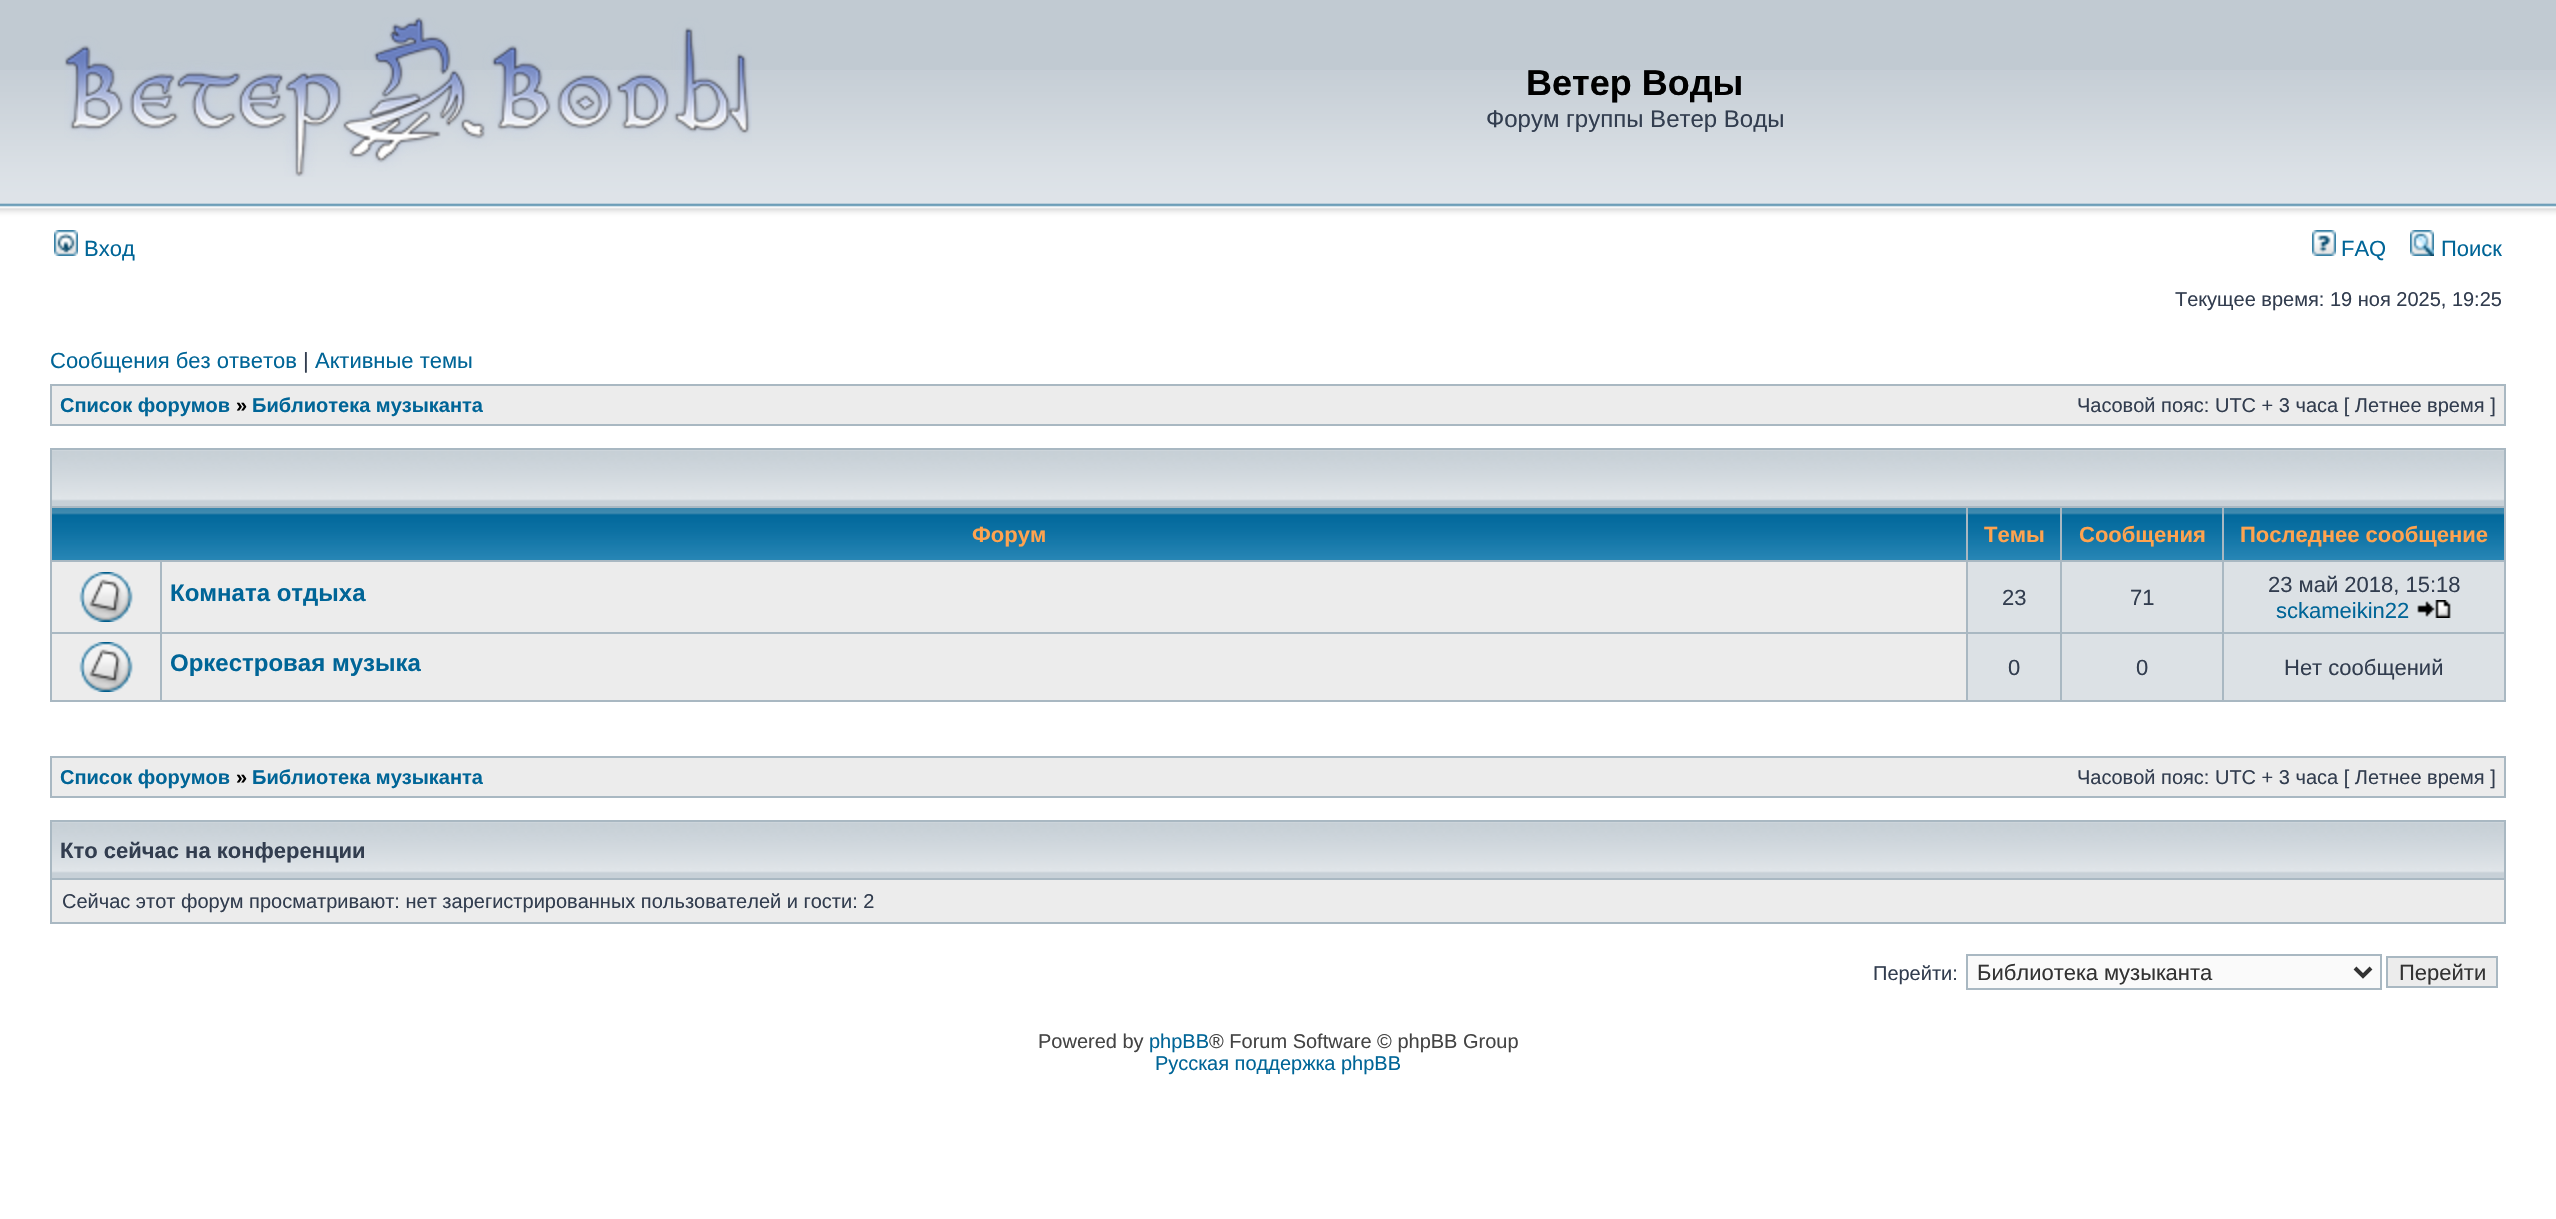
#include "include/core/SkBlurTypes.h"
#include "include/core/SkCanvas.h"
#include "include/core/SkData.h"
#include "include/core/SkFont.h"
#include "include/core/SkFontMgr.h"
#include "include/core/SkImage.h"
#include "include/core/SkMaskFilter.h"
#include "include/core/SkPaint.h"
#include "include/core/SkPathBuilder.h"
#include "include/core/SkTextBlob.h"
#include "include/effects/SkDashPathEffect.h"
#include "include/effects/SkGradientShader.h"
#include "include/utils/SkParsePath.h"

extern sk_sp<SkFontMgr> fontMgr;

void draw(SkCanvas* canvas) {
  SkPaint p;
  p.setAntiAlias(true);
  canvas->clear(SK_ColorWHITE);
  p.setColor(SkColorSetRGB(193, 202, 210));
  canvas->drawRect(SkRect::MakeLTRB(0, 0, 2556, 70), p);
  canvas->drawImageRect(SkImages::DeferredFromEncodedData(SkData::MakeFromFileName("images/1.png")), SkRect::MakeLTRB(0, 70, 2556, 226), SkSamplingOptions());
  canvas->drawImageRect(SkImages::DeferredFromEncodedData(SkData::MakeFromFileName("images/2.png")), SkRect::MakeLTRB(64, 17, 752, 177), SkSamplingOptions());
  canvas->drawImageRect(SkImages::DeferredFromEncodedData(SkData::MakeFromFileName("images/3.png")), SkRect::MakeLTRB(54, 230, 78, 256), SkSamplingOptions());
  canvas->drawImageRect(SkImages::DeferredFromEncodedData(SkData::MakeFromFileName("images/4.png")), SkRect::MakeLTRB(2312, 230, 2336, 256), SkSamplingOptions());
  canvas->drawImageRect(SkImages::DeferredFromEncodedData(SkData::MakeFromFileName("images/5.png")), SkRect::MakeLTRB(2410, 230, 2434, 256), SkSamplingOptions());
  p.setColor(SkColorSetRGB(169, 184, 194));
  canvas->drawRect(SkRect::MakeLTRB(50, 384, 2506, 426), p);
  p.setColor(SkColorSetRGB(236, 236, 236));
  canvas->drawRect(SkRect::MakeLTRB(52, 386, 2504, 424), p);
  p.setColor(SkColorSetRGB(169, 184, 194));
  canvas->drawRect(SkRect::MakeLTRB(50, 448, 2506, 702), p);
  p.setColor(SkColorSetRGB(199, 208, 215));
  canvas->drawRect(SkRect::MakeLTRB(52, 501, 2504, 506), p);
  canvas->drawImageRect(SkImages::DeferredFromEncodedData(SkData::MakeFromFileName("images/6.png")), SkRect::MakeLTRB(52, 450, 2504, 501), SkSamplingOptions());
  canvas->drawImageRect(SkImages::DeferredFromEncodedData(SkData::MakeFromFileName("images/7.png")), SkRect::MakeLTRB(52, 508, 1966, 560), SkSamplingOptions());
  canvas->drawImageRect(SkImages::DeferredFromEncodedData(SkData::MakeFromFileName("images/8.png")), SkRect::MakeLTRB(1968, 508, 2060, 560), SkSamplingOptions());
  canvas->drawImageRect(SkImages::DeferredFromEncodedData(SkData::MakeFromFileName("images/9.png")), SkRect::MakeLTRB(2062, 508, 2222, 560), SkSamplingOptions());
  canvas->drawImageRect(SkImages::DeferredFromEncodedData(SkData::MakeFromFileName("images/10.png")), SkRect::MakeLTRB(2224, 508, 2504, 560), SkSamplingOptions());
  p.setColor(SkColorSetRGB(236, 236, 236));
  canvas->drawRect(SkRect::MakeLTRB(52, 562, 160, 632), p);
  canvas->drawImageRect(SkImages::DeferredFromEncodedData(SkData::MakeFromFileName("images/11.png")), SkRect::MakeLTRB(79, 572, 133, 622), SkSamplingOptions());
  canvas->drawRect(SkRect::MakeLTRB(162, 562, 1966, 632), p);
  p.setColor(SkColorSetRGB(220, 225, 229));
  canvas->drawRect(SkRect::MakeLTRB(1968, 562, 2060, 632), p);
  canvas->drawRect(SkRect::MakeLTRB(2062, 562, 2222, 632), p);
  canvas->drawRect(SkRect::MakeLTRB(2224, 562, 2504, 632), p);
  canvas->drawImageRect(SkImages::DeferredFromEncodedData(SkData::MakeFromFileName("images/12.png")), SkRect::MakeLTRB(2417, 600, 2451, 618), SkSamplingOptions());
  p.setColor(SkColorSetRGB(236, 236, 236));
  canvas->drawRect(SkRect::MakeLTRB(52, 634, 160, 700), p);
  canvas->drawImageRect(SkImages::DeferredFromEncodedData(SkData::MakeFromFileName("images/11.png")), SkRect::MakeLTRB(79, 642, 133, 692), SkSamplingOptions());
  canvas->drawRect(SkRect::MakeLTRB(162, 634, 1966, 700), p);
  p.setColor(SkColorSetRGB(220, 225, 229));
  canvas->drawRect(SkRect::MakeLTRB(1968, 634, 2060, 700), p);
  canvas->drawRect(SkRect::MakeLTRB(2062, 634, 2222, 700), p);
  canvas->drawRect(SkRect::MakeLTRB(2224, 634, 2504, 700), p);
  p.setColor(SkColorSetRGB(169, 184, 194));
  canvas->drawRect(SkRect::MakeLTRB(50, 756, 2506, 798), p);
  p.setColor(SkColorSetRGB(236, 236, 236));
  canvas->drawRect(SkRect::MakeLTRB(52, 758, 2504, 796), p);
  p.setColor(SkColorSetRGB(169, 184, 194));
  canvas->drawRect(SkRect::MakeLTRB(50, 820, 2506, 924), p);
  p.setColor(SkColorSetRGB(199, 208, 215));
  canvas->drawRect(SkRect::MakeLTRB(52, 873, 2504, 878), p);
  canvas->drawImageRect(SkImages::DeferredFromEncodedData(SkData::MakeFromFileName("images/6.png")), SkRect::MakeLTRB(52, 822, 2504, 873), SkSamplingOptions());
  p.setColor(SkColorSetRGB(236, 236, 236));
  canvas->drawRect(SkRect::MakeLTRB(52, 880, 2504, 922), p);
  p.setColor(SkColorSetRGB(250, 250, 250));
  canvas->drawRect(SkRect::MakeLTRB(1967, 955, 2381, 989), p);
  p.setStyle(SkPaint::kStroke_Style);
  p.setStrokeWidth(2);
  p.setColor(SkColorSetRGB(169, 184, 194));
  canvas->drawRect(SkRect::MakeLTRB(1967, 955, 2381, 989), p);
  p.setStrokeWidth(4);
  p.setColor(SkColorSetRGB(51, 51, 51));
  canvas->drawPath(SkPathBuilder().moveTo(2355, 968).lineTo(2363, 976).lineTo(2371, 968).detach(), p);
  p.setStyle(SkPaint::kFill_Style);
  p.setColor(SkColorSetRGB(236, 236, 236));
  canvas->drawRect(SkRect::MakeLTRB(2387, 957, 2497, 987), p);
  p.setStyle(SkPaint::kStroke_Style);
  p.setStrokeWidth(2);
  p.setColor(SkColorSetRGB(169, 184, 194));
  canvas->drawRect(SkRect::MakeLTRB(2387, 957, 2497, 987), p);
  SkFont font1(fontMgr->matchFamilyStyle("Liberation Sans", SkFontStyle::Bold()), 36);
  font1.setSubpixel(true);
  p.setStyle(SkPaint::kFill_Style);
  p.setColor(SK_ColorBLACK);
  canvas->drawString("Ветер Воды", 1526, 95, font1, p);
  SkFont font2(fontMgr->matchFamilyStyle("Liberation Sans", SkFontStyle::Normal()), 24);
  font2.setSubpixel(true);
  p.setColor(SkColorSetRGB(50, 61, 79));
  canvas->drawString("Форум группы Ветер Воды", 1486, 127, font2, p);
  SkFont font3(fontMgr->matchFamilyStyle("Liberation Sans", SkFontStyle::Normal()), 22);
  font3.setSubpixel(true);
  p.setColor(SkColorSetRGB(0, 101, 151));
  canvas->drawString("Вход", 84, 256, font3, p);
  canvas->drawString("FAQ", 2341, 256, font3, p);
  canvas->drawString("Поиск", 2441, 256, font3, p);
  SkFont font4(fontMgr->matchFamilyStyle("Liberation Sans", SkFontStyle::Normal()), 20);
  font4.setSubpixel(true);
  p.setColor(SkColorSetRGB(50, 61, 79));
  canvas->drawString("Текущее время: 19 ноя 2025, 19:25", 2175, 306, font4, p);
  p.setColor(SkColorSetRGB(0, 101, 151));
  canvas->drawString("Сообщения без ответов", 50, 368, font3, p);
  p.setColor(SkColorSetRGB(50, 61, 79));
  canvas->drawString("|", 303, 368, font3, p);
  p.setColor(SkColorSetRGB(0, 101, 151));
  canvas->drawString("Активные темы", 315, 368, font3, p);
  SkFont font5(fontMgr->matchFamilyStyle("Liberation Sans", SkFontStyle::Bold()), 20);
  font5.setSubpixel(true);
  canvas->drawString("Список форумов", 60, 412, font5, p);
  p.setColor(SK_ColorBLACK);
  canvas->drawString("»", 236, 412, font5, p);
  p.setColor(SkColorSetRGB(0, 101, 151));
  canvas->drawString("Библиотека музыканта", 252, 412, font5, p);
  p.setColor(SkColorSetRGB(50, 61, 79));
  canvas->drawString("Часовой пояс: UTC + 3 часа [ Летнее время ]", 2077, 412, font4, p);
  SkFont font6(fontMgr->matchFamilyStyle("Liberation Sans", SkFontStyle::Bold()), 22);
  font6.setSubpixel(true);
  p.setColor(SkColorSetRGB(255, 163, 79));
  canvas->drawString("Форум", 972, 542, font6, p);
  canvas->drawString("Темы", 1984, 542, font6, p);
  canvas->drawString("Сообщения", 2079, 542, font6, p);
  canvas->drawString("Последнее сообщение", 2240, 542, font6, p);
  SkFont font7(fontMgr->matchFamilyStyle("Liberation Sans", SkFontStyle::Bold()), 24);
  font7.setSubpixel(true);
  p.setColor(SkColorSetRGB(0, 101, 151));
  canvas->drawString("Комната отдыха", 170, 601, font7, p);
  p.setColor(SkColorSetRGB(50, 61, 79));
  canvas->drawString("23", 2002, 605, font3, p);
  canvas->drawString("71", 2130, 605, font3, p);
  canvas->drawString("23 май 2018, 15:18", 2268, 592, font3, p);
  p.setColor(SkColorSetRGB(0, 101, 151));
  canvas->drawString("sckameikin22", 2276, 618, font3, p);
  canvas->drawString("Оркестровая музыка", 170, 671, font7, p);
  p.setColor(SkColorSetRGB(50, 61, 79));
  canvas->drawString("0", 2008, 675, font3, p);
  canvas->drawString("0", 2136, 675, font3, p);
  canvas->drawString("Нет сообщений", 2284, 675, font3, p);
  p.setColor(SkColorSetRGB(0, 101, 151));
  canvas->drawString("Список форумов", 60, 784, font5, p);
  p.setColor(SK_ColorBLACK);
  canvas->drawString("»", 236, 784, font5, p);
  p.setColor(SkColorSetRGB(0, 101, 151));
  canvas->drawString("Библиотека музыканта", 252, 784, font5, p);
  p.setColor(SkColorSetRGB(50, 61, 79));
  canvas->drawString("Часовой пояс: UTC + 3 часа [ Летнее время ]", 2077, 784, font4, p);
  canvas->drawString("Кто сейчас на конференции", 60, 858, font6, p);
  canvas->drawString("Сейчас этот форум просматривают: нет зарегистрированных пользователей и гости: 2", 62, 908, font4, p);
  canvas->drawString("Перейти:", 1873, 980, font4, p);
  p.setColor(SkColorSetRGB(51, 51, 51));
  canvas->drawString("Библиотека музыканта", 1977, 980, font3, p);
  canvas->drawString("Перейти", 2399, 980, font3, p);
  p.setColor(SkColorSetRGB(68, 68, 68));
  canvas->drawString("Powered by", 1038, 1048, font4, p);
  p.setColor(SkColorSetRGB(0, 101, 151));
  canvas->drawString("phpBB", 1149, 1048, font4, p);
  p.setColor(SkColorSetRGB(68, 68, 68));
  canvas->drawString("® Forum Software © phpBB Group", 1209, 1048, font4, p);
  p.setColor(SkColorSetRGB(0, 101, 151));
  canvas->drawString("Русская поддержка phpBB", 1155, 1070, font4, p);
}
